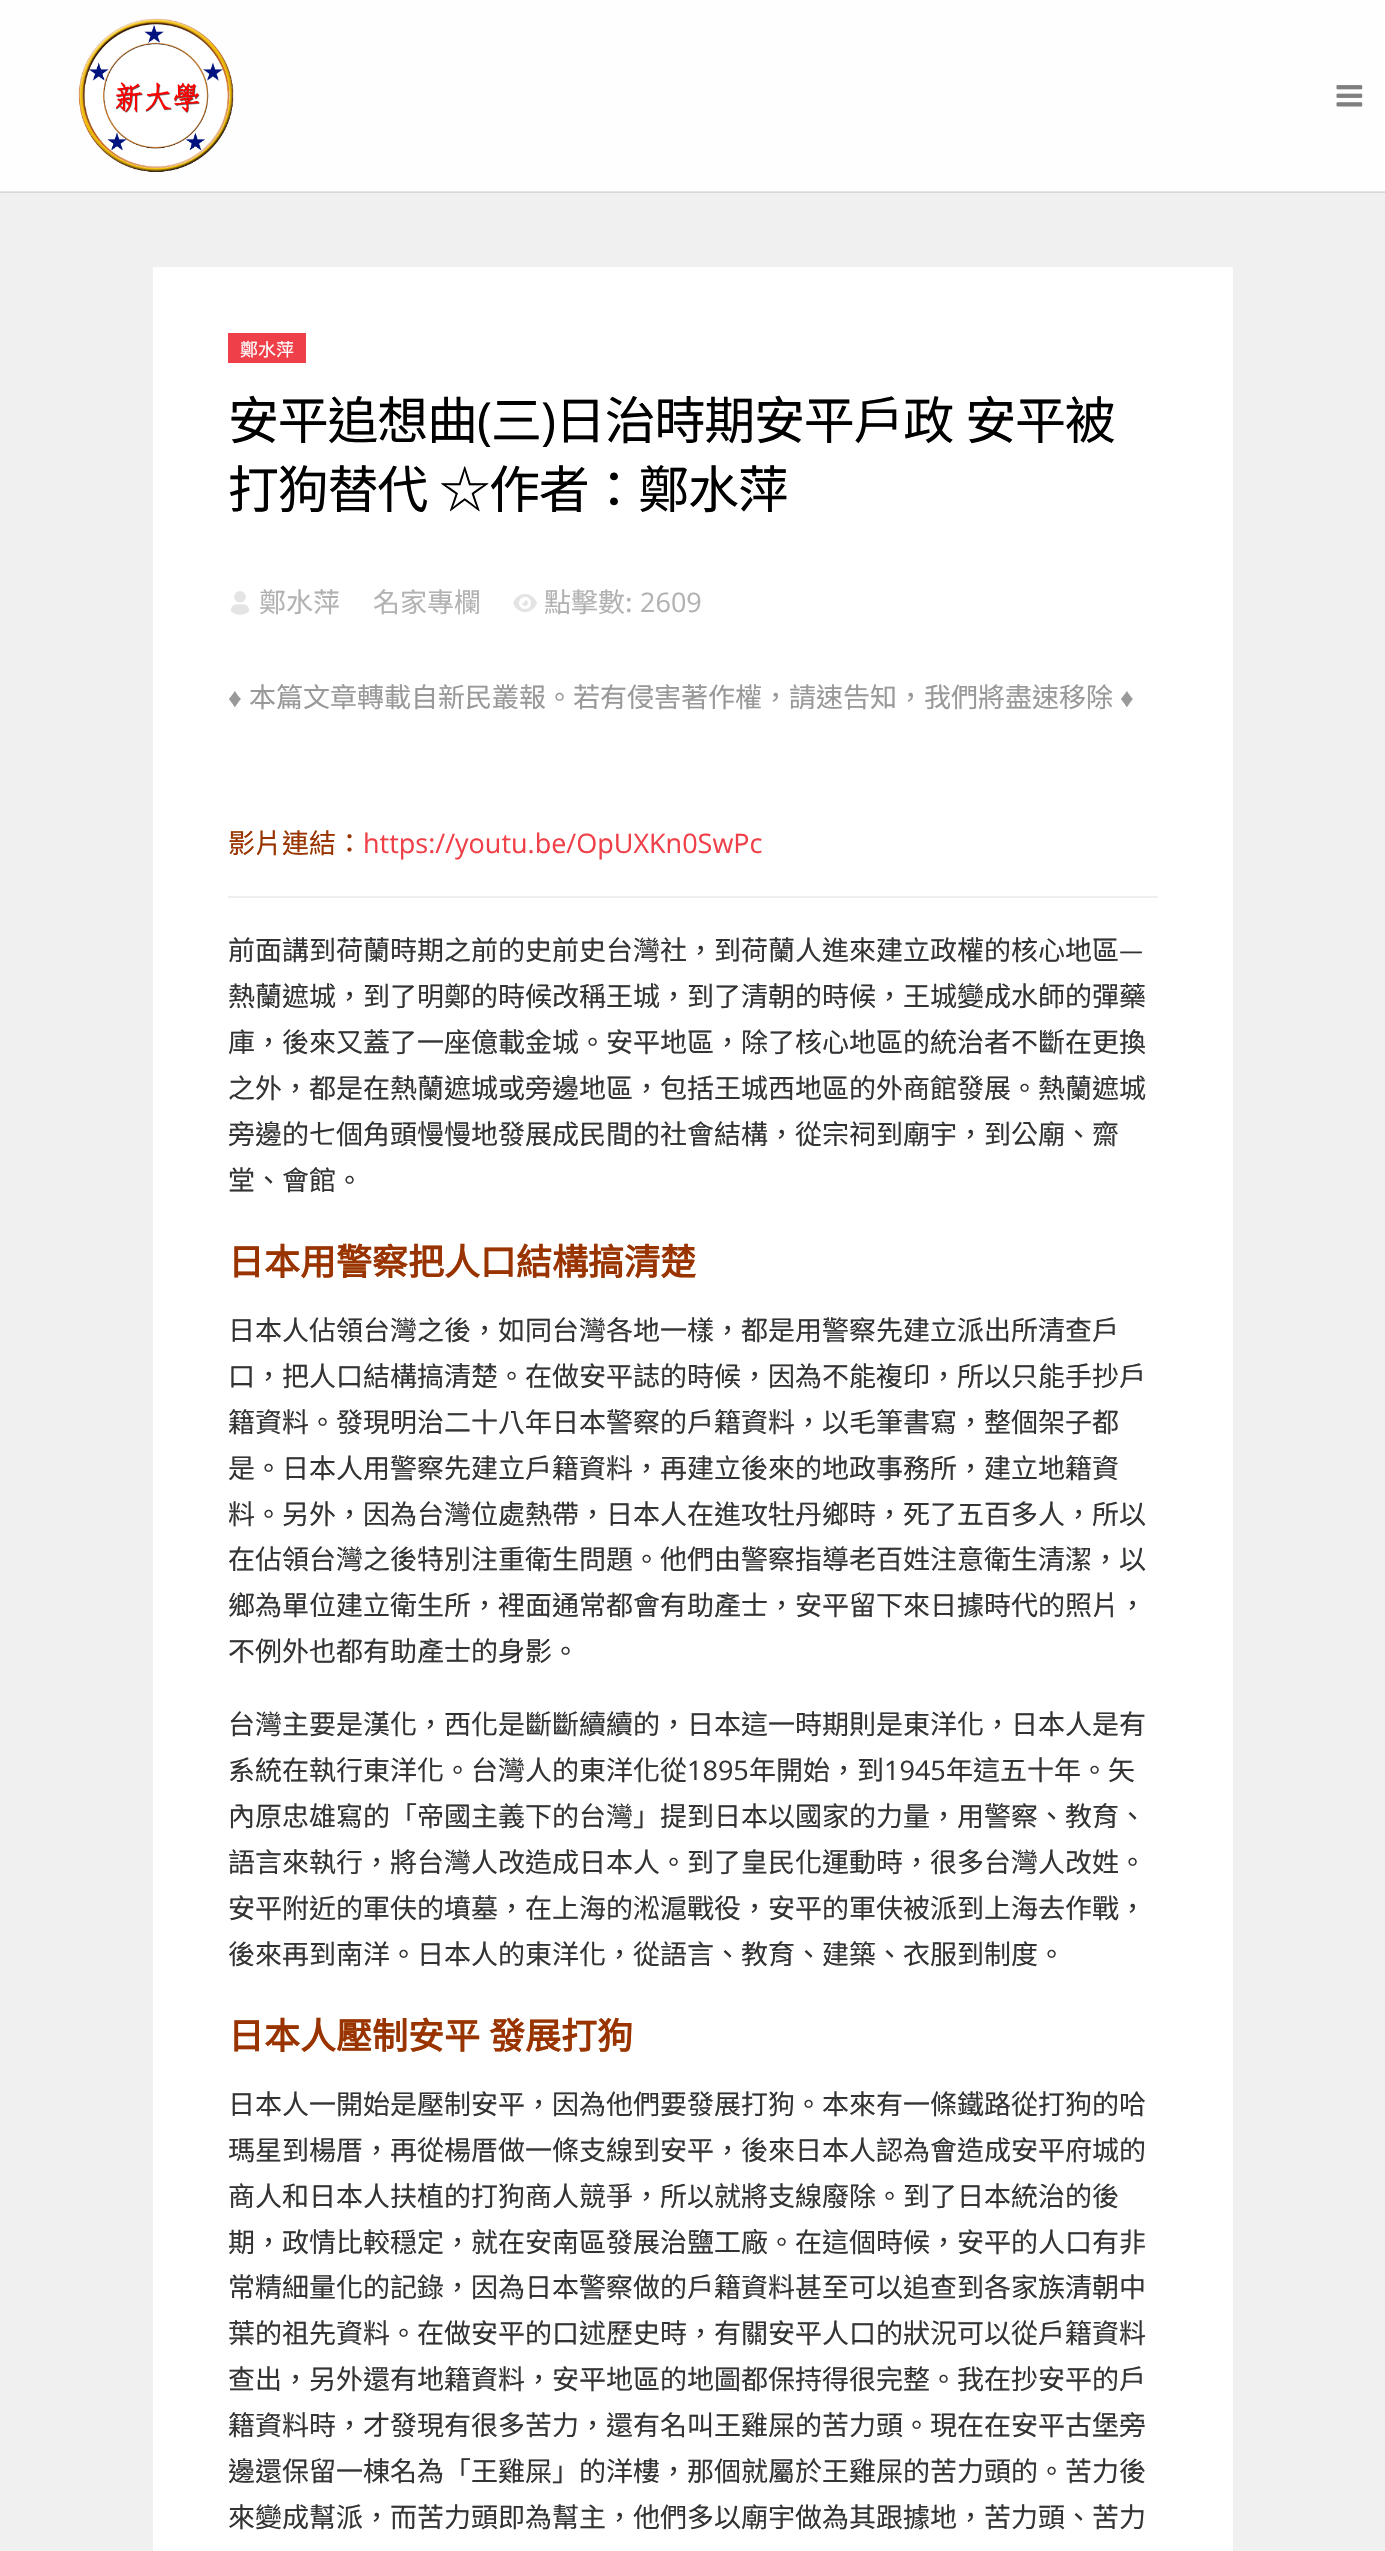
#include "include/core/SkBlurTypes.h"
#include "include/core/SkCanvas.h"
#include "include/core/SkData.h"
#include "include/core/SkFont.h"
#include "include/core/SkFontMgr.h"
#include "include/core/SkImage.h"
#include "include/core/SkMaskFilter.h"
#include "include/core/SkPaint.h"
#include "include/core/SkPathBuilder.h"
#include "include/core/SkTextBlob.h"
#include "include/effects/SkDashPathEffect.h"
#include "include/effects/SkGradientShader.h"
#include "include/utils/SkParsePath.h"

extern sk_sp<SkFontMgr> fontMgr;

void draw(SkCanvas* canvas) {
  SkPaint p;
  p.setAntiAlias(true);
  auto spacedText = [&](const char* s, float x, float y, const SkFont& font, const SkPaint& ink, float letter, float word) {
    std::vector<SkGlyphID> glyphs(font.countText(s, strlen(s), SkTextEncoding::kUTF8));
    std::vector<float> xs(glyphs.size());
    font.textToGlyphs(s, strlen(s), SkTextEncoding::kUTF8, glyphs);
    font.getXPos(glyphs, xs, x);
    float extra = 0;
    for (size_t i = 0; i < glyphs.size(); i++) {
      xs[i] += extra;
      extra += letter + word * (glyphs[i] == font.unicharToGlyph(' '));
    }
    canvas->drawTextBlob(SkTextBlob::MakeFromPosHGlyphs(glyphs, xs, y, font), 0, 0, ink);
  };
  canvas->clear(SkColorSetRGB(240, 240, 240));
  p.setColor(SkColorSetRGB(216, 216, 216));
  canvas->drawRect(SkRect::MakeLTRB(0, 192, 1385, 193), p);
  p.setColor(SkColorSetRGB(254, 254, 254));
  canvas->drawRect(SkRect::MakeLTRB(0, 0, 1385, 191), p);
  p.setColor(SkColorSetRGB(229, 229, 229));
  canvas->drawRect(SkRect::MakeLTRB(0, 191, 1385, 192), p);
  canvas->drawImageRect(SkImages::DeferredFromEncodedData(SkData::MakeFromFileName("images/1.png")), SkRect::MakeLTRB(78, 18, 234, 172), SkSamplingOptions());
  canvas->drawImageRect(SkImages::DeferredFromEncodedData(SkData::MakeFromFileName("images/2.png")), SkRect::MakeLTRB(1336, 85, 1363, 107), SkSamplingOptions());
  p.setColor(SK_ColorWHITE);
  canvas->drawRect(SkRect::MakeLTRB(153, 267, 1233, 2551), p);
  p.setColor(SkColorSetRGB(239, 63, 72));
  canvas->drawRect(SkRect::MakeLTRB(228, 333, 306, 363), p);
  canvas->drawImageRect(SkImages::DeferredFromEncodedData(SkData::MakeFromFileName("images/3.png")), SkRect::MakeLTRB(231, 591, 249, 615), SkSamplingOptions());
  canvas->drawImageRect(SkImages::DeferredFromEncodedData(SkData::MakeFromFileName("images/4.png")), SkRect::MakeLTRB(513, 594, 537, 612), SkSamplingOptions());
  p.setColor(SkColorSetRGB(238, 238, 238));
  canvas->drawRect(SkRect::MakeLTRB(228, 896, 1158, 898), p);
  SkFont font1(fontMgr->matchFamilyStyle("Noto Sans CJK TC", SkFontStyle::Normal()), 18);
  font1.setSubpixel(true);
  p.setColor(SK_ColorWHITE);
  canvas->drawString("鄭水萍", 240, 356, font1, p);
  SkFont font2(fontMgr->matchFamilyStyle("Noto Sans CJK TC", SkFontStyle::Normal()), 51);
  font2.setSubpixel(true);
  p.setColor(SK_ColorBLACK);
  spacedText("安平追想曲", 228, 439, font2, p, -1.25f, 0);
  SkFont font3(fontMgr->matchFamilyStyle("Open Sans", SkFontStyle::Normal()), 51);
  font3.setSubpixel(true);
  spacedText("(", 477, 439, font3, p, -1.25f, 0);
  spacedText("三", 491, 439, font2, p, -1.25f, 0);
  spacedText(")", 541, 439, font3, p, -1.25f, 0);
  spacedText("日治時期安平戶政 安平被", 555, 439, font2, p, -1.25f, 2);
  spacedText("打狗替代 ☆作者：鄭水萍", 228, 508, font2, p, -1.25f, 2);
  SkFont font4(fontMgr->matchFamilyStyle("Noto Sans CJK TC", SkFontStyle::Normal()), 27);
  font4.setSubpixel(true);
  p.setColor(SkColorSetRGB(178, 178, 178));
  canvas->drawString("鄭水萍", 259, 612, font4, p);
  canvas->drawString("名家專欄", 373, 612, font4, p);
  canvas->drawString("點擊數:", 544, 612, font4, p);
  SkFont font5(fontMgr->matchFamilyStyle("Open Sans", SkFontStyle::Normal()), 27);
  font5.setSubpixel(true);
  canvas->drawString("2609", 640, 612, font5, p);
  SkFont font6(fontMgr->matchFamilyStyle("Liberation Sans", SkFontStyle::Normal()), 27);
  font6.setSubpixel(true);
  p.setColor(SkColorSetRGB(153, 153, 153));
  canvas->drawString("♦", 228, 707, font6, p);
  canvas->drawString("本篇文章轉載自新民叢報。若有侵害著作權，請速告知，我們將盡速移除", 249, 707, font4, p);
  canvas->drawString("♦", 1120, 707, font6, p);
  p.setColor(SkColorSetRGB(153, 51, 0));
  canvas->drawString("影片連結：", 228, 853, font4, p);
  p.setColor(SkColorSetRGB(239, 63, 72));
  canvas->drawString("https://youtu.be/OpUXKn0SwPc", 363, 853, font5, p);
  p.setColor(SkColorSetRGB(51, 51, 51));
  canvas->drawString("前面講到荷蘭時期之前的史前史台灣社，到荷蘭人進來建立政權的核心地區—", 228, 960, font4, p);
  canvas->drawString("熱蘭遮城，到了明鄭的時候改稱王城，到了清朝的時候，王城變成水師的彈藥", 228, 1006, font4, p);
  canvas->drawString("庫，後來又蓋了一座億載金城。安平地區，除了核心地區的統治者不斷在更換", 228, 1052, font4, p);
  canvas->drawString("之外，都是在熱蘭遮城或旁邊地區，包括王城西地區的外商館發展。熱蘭遮城", 228, 1098, font4, p);
  canvas->drawString("旁邊的七個角頭慢慢地發展成民間的社會結構，從宗祠到廟宇，到公廟、齋", 228, 1144, font4, p);
  canvas->drawString("堂、會館。", 228, 1190, font4, p);
  SkFont font7(fontMgr->matchFamilyStyle("Noto Sans CJK TC", SkFontStyle::Bold()), 36);
  font7.setSubpixel(true);
  p.setColor(SkColorSetRGB(153, 51, 0));
  canvas->drawString("日本用警察把人口結構搞清楚", 228, 1275, font7, p);
  p.setColor(SkColorSetRGB(51, 51, 51));
  canvas->drawString("日本人佔領台灣之後，如同台灣各地一樣，都是用警察先建立派出所清查戶", 228, 1340, font4, p);
  canvas->drawString("口，把人口結構搞清楚。在做安平誌的時候，因為不能複印，所以只能手抄戶", 228, 1386, font4, p);
  canvas->drawString("籍資料。發現明治二十八年日本警察的戶籍資料，以毛筆書寫，整個架子都", 228, 1432, font4, p);
  canvas->drawString("是。日本人用警察先建立戶籍資料，再建立後來的地政事務所，建立地籍資", 228, 1478, font4, p);
  canvas->drawString("料。另外，因為台灣位處熱帶，日本人在進攻牡丹鄉時，死了五百多人，所以", 228, 1524, font4, p);
  canvas->drawString("在佔領台灣之後特別注重衛生問題。他們由警察指導老百姓注意衛生清潔，以", 228, 1569, font4, p);
  canvas->drawString("鄉為單位建立衛生所，裡面通常都會有助產士，安平留下來日據時代的照片，", 228, 1615, font4, p);
  canvas->drawString("不例外也都有助產士的身影。", 228, 1661, font4, p);
  canvas->drawString("台灣主要是漢化，西化是斷斷續續的，日本這一時期則是東洋化，日本人是有", 228, 1734, font4, p);
  canvas->drawString("系統在執行東洋化。台灣人的東洋化從", 228, 1780, font4, p);
  canvas->drawString("1895", 687, 1780, font5, p);
  canvas->drawString("年開始，到", 749, 1780, font4, p);
  canvas->drawString("1945", 884, 1780, font5, p);
  canvas->drawString("年這五十年。矢", 946, 1780, font4, p);
  canvas->drawString("內原忠雄寫的「帝國主義下的台灣」提到日本以國家的力量，用警察、教育、", 228, 1826, font4, p);
  canvas->drawString("語言來執行，將台灣人改造成日本人。到了皇民化運動時，很多台灣人改姓。", 228, 1872, font4, p);
  canvas->drawString("安平附近的軍伕的墳墓，在上海的淞滬戰役，安平的軍伕被派到上海去作戰，", 228, 1918, font4, p);
  canvas->drawString("後來再到南洋。日本人的東洋化，從語言、教育、建築、衣服到制度。", 228, 1964, font4, p);
  p.setColor(SkColorSetRGB(153, 51, 0));
  spacedText("日本人壓制安平 發展打狗", 228, 2049, font7, p, 0, 1);
  p.setColor(SkColorSetRGB(51, 51, 51));
  canvas->drawString("日本人一開始是壓制安平，因為他們要發展打狗。本來有一條鐵路從打狗的哈", 228, 2114, font4, p);
  canvas->drawString("瑪星到楊厝，再從楊厝做一條支線到安平，後來日本人認為會造成安平府城的", 228, 2160, font4, p);
  canvas->drawString("商人和日本人扶植的打狗商人競爭，所以就將支線廢除。到了日本統治的後", 228, 2206, font4, p);
  canvas->drawString("期，政情比較穏定，就在安南區發展治鹽工廠。在這個時候，安平的人口有非", 228, 2252, font4, p);
  canvas->drawString("常精細量化的記錄，因為日本警察做的戶籍資料甚至可以追查到各家族清朝中", 228, 2297, font4, p);
  canvas->drawString("葉的祖先資料。在做安平的口述歷史時，有關安平人口的狀況可以從戶籍資料", 228, 2343, font4, p);
  canvas->drawString("查出，另外還有地籍資料，安平地區的地圖都保持得很完整。我在抄安平的戶", 228, 2389, font4, p);
  canvas->drawString("籍資料時，才發現有很多苦力，還有名叫王雞屎的苦力頭。現在在安平古堡旁", 228, 2435, font4, p);
  canvas->drawString("邊還保留一棟名為「王雞屎」的洋樓，那個就屬於王雞屎的苦力頭的。苦力後", 228, 2481, font4, p);
  canvas->drawString("來變成幫派，而苦力頭即為幫主，他們多以廟宇做為其跟據地，苦力頭、苦力", 228, 2527, font4, p);
}
